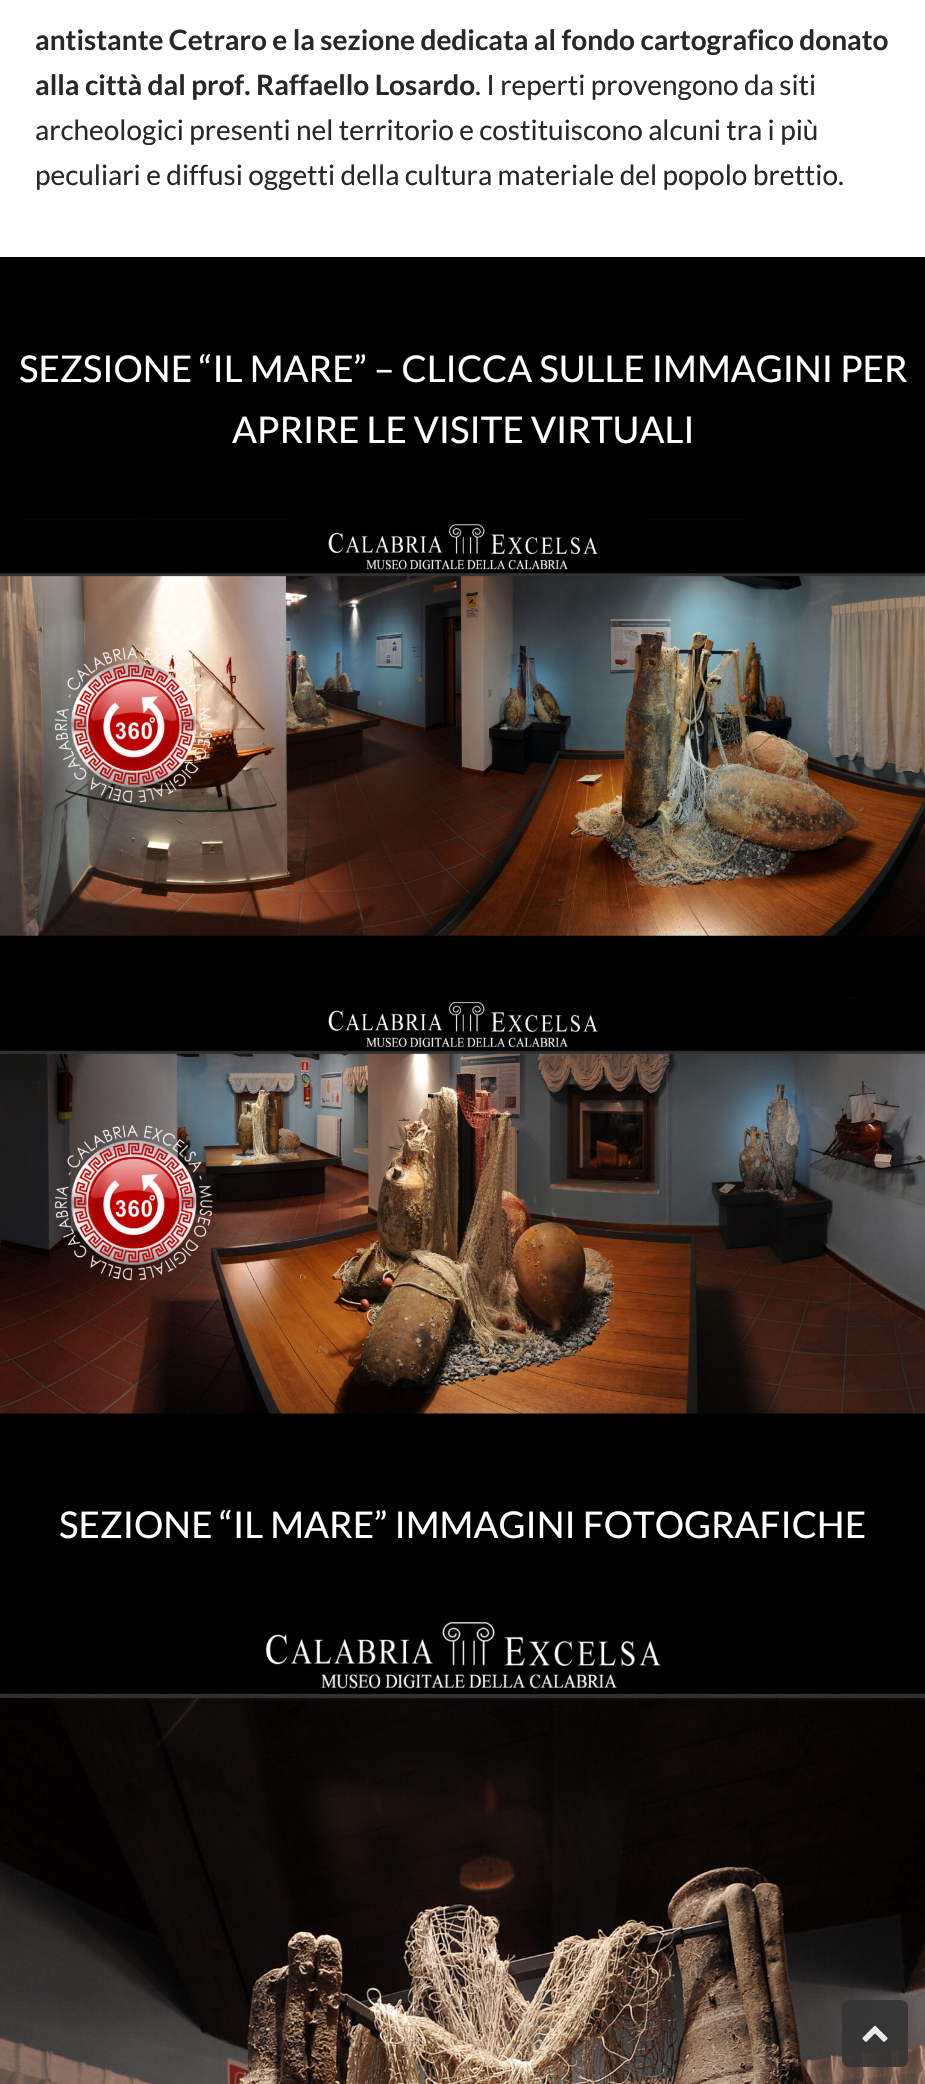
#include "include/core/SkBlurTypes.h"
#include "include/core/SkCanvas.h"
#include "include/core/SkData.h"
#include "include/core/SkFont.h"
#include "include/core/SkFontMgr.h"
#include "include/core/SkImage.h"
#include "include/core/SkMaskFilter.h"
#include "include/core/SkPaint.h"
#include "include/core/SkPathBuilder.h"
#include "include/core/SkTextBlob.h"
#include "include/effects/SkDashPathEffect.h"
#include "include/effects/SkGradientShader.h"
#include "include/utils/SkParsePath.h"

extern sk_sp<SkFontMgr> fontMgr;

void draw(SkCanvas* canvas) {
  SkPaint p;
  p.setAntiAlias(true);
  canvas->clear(SK_ColorWHITE);
  p.setColor(SK_ColorBLACK);
  canvas->drawRect(SkRect::MakeLTRB(0, 257, 925, 1620), p);
  canvas->drawImageRect(SkImages::DeferredFromEncodedData(SkData::MakeFromFileName("images/1.png")), SkRect::MakeLTRB(0, 519, 925, 936), SkSamplingOptions());
  canvas->drawImageRect(SkImages::DeferredFromEncodedData(SkData::MakeFromFileName("images/2.png")), SkRect::MakeLTRB(0, 997, 925, 1414), SkSamplingOptions());
  canvas->drawImageRect(SkImages::DeferredFromEncodedData(SkData::MakeFromFileName("images/3.png")), SkRect::MakeLTRB(0, 1620, 925, 2084), SkSamplingOptions());
  p.setColor(SkColorSetARGB(227, 51, 51, 51));
  canvas->drawRoundRect(SkRect::MakeLTRB(842, 2000, 908, 2067), 7, 7, p);
  canvas->drawImageRect(SkImages::DeferredFromEncodedData(SkData::MakeFromFileName("images/4.png")), SkRect::MakeLTRB(862, 2025, 888, 2042), SkSamplingOptions());
  SkFont font1(fontMgr->matchFamilyStyle("Lato", SkFontStyle::Bold()), 28);
  font1.setSubpixel(true);
  p.setColor(SkColorSetRGB(40, 40, 40));
  canvas->drawString("antistante Cetraro e la sezione dedicata al fondo cartografico donato", 35, 50, font1, p);
  canvas->drawString("alla città dal prof. Raffaello Losardo", 35, 95, font1, p);
  SkFont font2(fontMgr->matchFamilyStyle("Lato", SkFontStyle::Normal()), 28);
  font2.setSubpixel(true);
  canvas->drawString(". I reperti provengono da siti", 475, 95, font2, p);
  canvas->drawString("archeologici presenti nel territorio e costituiscono alcuni tra i più", 35, 140, font2, p);
  canvas->drawString("peculiari e diffusi oggetti della cultura materiale del popolo brettio.", 35, 185, font2, p);
  SkFont font3(fontMgr->matchFamilyStyle("Lato", SkFontStyle::Normal()), 36.75f);
  font3.setSubpixel(true);
  p.setColor(SK_ColorWHITE);
  canvas->drawString("SEZSIONE “IL MARE” – CLICCA SULLE IMMAGINI PER", 19, 382, font3, p);
  canvas->drawString("APRIRE LE VISITE VIRTUALI", 232, 443, font3, p);
  canvas->drawString("SEZIONE “IL MARE” IMMAGINI FOTOGRAFICHE", 59, 1538, font3, p);
}
